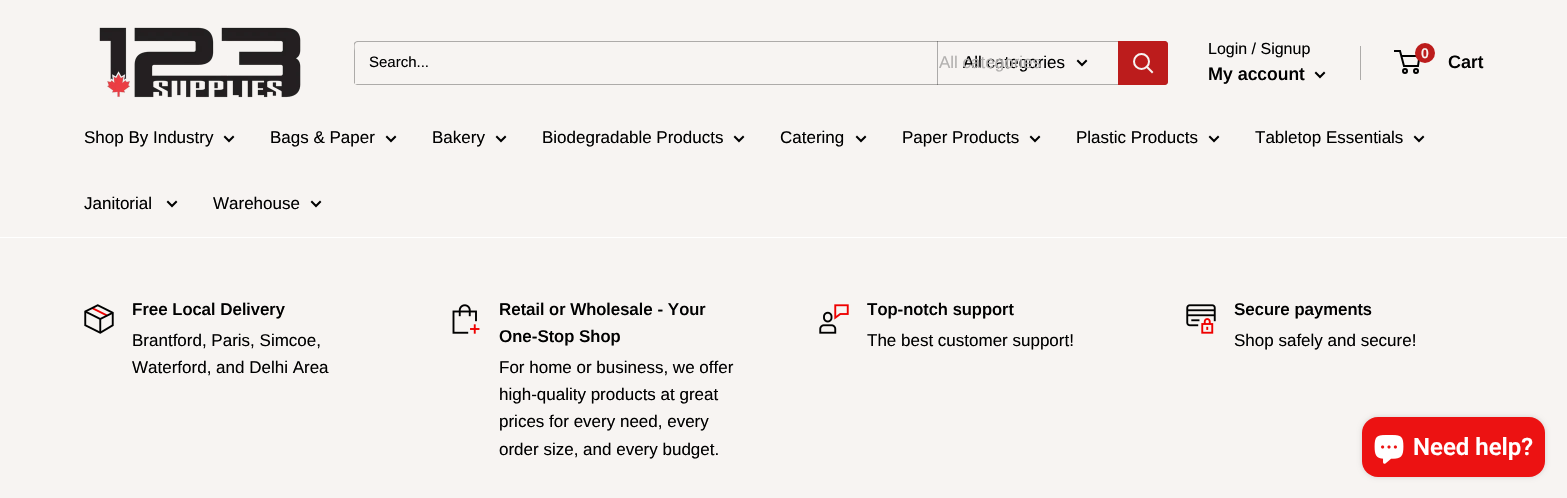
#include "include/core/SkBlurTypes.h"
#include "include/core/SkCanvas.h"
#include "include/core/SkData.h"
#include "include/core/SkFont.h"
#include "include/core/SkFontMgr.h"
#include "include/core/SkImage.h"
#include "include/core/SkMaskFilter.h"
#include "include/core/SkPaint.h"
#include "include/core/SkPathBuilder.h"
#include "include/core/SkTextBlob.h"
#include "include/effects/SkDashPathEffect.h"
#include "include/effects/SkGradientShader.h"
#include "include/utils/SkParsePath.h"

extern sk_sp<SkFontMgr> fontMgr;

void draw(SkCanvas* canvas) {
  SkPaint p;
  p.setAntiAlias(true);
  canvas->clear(SkColorSetRGB(247, 244, 242));
  canvas->drawImageRect(SkImages::DeferredFromEncodedData(SkData::MakeFromFileName("images/1.png")), SkRect::MakeLTRB(99, 27, 301, 98), SkSamplingOptions());
  p.setColor(SkColorSetRGB(173, 171, 169));
  canvas->drawPath(SkPathBuilder().moveTo(355, 84).lineTo(357, 85).lineTo(1165, 85).lineTo(1167, 84).lineTo(1168, 83).lineTo(1168, 43).lineTo(1167, 42).lineTo(1167, 75).cubicTo(1167, 77, 1169, 84, 1164, 84).close().detach(), p);
  canvas->drawPath(SkPathBuilder().moveTo(358, 42).lineTo(1167, 42).lineTo(1165, 41).lineTo(357, 41).lineTo(355, 42).lineTo(354, 43).lineTo(354, 83).lineTo(355, 84).lineTo(355, 51).cubicTo(355, 49, 353, 42, 358, 42).close().detach(), p);
  p.setColor(SkColorSetARGB(77, 0, 0, 0));
  canvas->drawRect(SkRect::MakeLTRB(937, 41, 938, 85), p);
  p.setStyle(SkPaint::kStroke_Style);
  p.setStrokeWidth(2);
  p.setStrokeCap(SkPaint::kSquare_Cap);
  p.setColor(SK_ColorBLACK);
  canvas->drawPath(SkPathBuilder().moveTo(1086, 61).lineTo(1082, 65).lineTo(1078, 61).detach(), p);
  p.setStyle(SkPaint::kFill_Style);
  p.setColor(SkColorSetRGB(188, 28, 28));
  canvas->drawPath(SkPathBuilder().moveTo(1118, 41).lineTo(1165, 41).cubicTo(1166.5f, 41, 1168, 42.5f, 1168, 44).lineTo(1168, 82).cubicTo(1168, 83.5f, 1166.5f, 85, 1165, 85).lineTo(1118, 85).close().detach(), p);
  p.setStyle(SkPaint::kStroke_Style);
  p.setColor(SkColorSetRGB(247, 244, 242));
  canvas->drawPath(SkPathBuilder().moveTo(1152, 72).lineTo(1147, 67).detach(), p);
  p.setStrokeCap(SkPaint::kButt_Cap);
  canvas->drawCircle(1141.5f, 61.5f, 7.5f, p);
  p.setStyle(SkPaint::kFill_Style);
  p.setColor(SkColorSetRGB(173, 171, 169));
  canvas->drawRect(SkRect::MakeLTRB(1360, 46, 1361, 80), p);
  p.setStyle(SkPaint::kStroke_Style);
  p.setStrokeCap(SkPaint::kSquare_Cap);
  p.setColor(SK_ColorBLACK);
  canvas->drawPath(SkPathBuilder().moveTo(1324, 73).lineTo(1320, 77).lineTo(1316, 73).detach(), p);
  p.setStrokeCap(SkPaint::kButt_Cap);
  canvas->drawCircle(1405, 71, 2, p);
  canvas->drawCircle(1416, 71, 2, p);
  canvas->drawPath(SkPathBuilder().moveTo(1401.5f, 56).lineTo(1419.5f, 56).lineTo(1418, 66).lineTo(1404, 66).lineTo(1400, 51).lineTo(1394, 51).detach(), p);
  p.setStyle(SkPaint::kFill_Style);
  p.setColor(SkColorSetRGB(188, 28, 28));
  canvas->drawCircle(1425, 53, 10, p);
  p.setColor(SK_ColorWHITE);
  canvas->drawRect(SkRect::MakeLTRB(0, 237, 1567, 238), p);
  p.setStyle(SkPaint::kStroke_Style);
  p.setStrokeCap(SkPaint::kSquare_Cap);
  p.setColor(SK_ColorBLACK);
  canvas->drawPath(SkPathBuilder().moveTo(233, 137).lineTo(229, 141).lineTo(225, 137).detach(), p);
  canvas->drawPath(SkPathBuilder().moveTo(395, 137).lineTo(391, 141).lineTo(387, 137).detach(), p);
  canvas->drawPath(SkPathBuilder().moveTo(505, 137).lineTo(501, 141).lineTo(497, 137).detach(), p);
  canvas->drawPath(SkPathBuilder().moveTo(743, 137).lineTo(739, 141).lineTo(735, 137).detach(), p);
  canvas->drawPath(SkPathBuilder().moveTo(865, 137).lineTo(861, 141).lineTo(857, 137).detach(), p);
  canvas->drawPath(SkPathBuilder().moveTo(1039, 137).lineTo(1035, 141).lineTo(1031, 137).detach(), p);
  canvas->drawPath(SkPathBuilder().moveTo(1218, 137).lineTo(1214, 141).lineTo(1210, 137).detach(), p);
  canvas->drawPath(SkPathBuilder().moveTo(1423, 137).lineTo(1419, 141).lineTo(1415, 137).detach(), p);
  canvas->drawPath(SkPathBuilder().moveTo(176, 202).lineTo(172, 206).lineTo(168, 202).detach(), p);
  canvas->drawPath(SkPathBuilder().moveTo(320, 202).lineTo(316, 206).lineTo(312, 202).detach(), p);
  canvas->drawImageRect(SkImages::DeferredFromEncodedData(SkData::MakeFromFileName("images/2.png")), SkRect::MakeLTRB(84, 304, 114, 334), SkSamplingOptions());
  canvas->drawImageRect(SkImages::DeferredFromEncodedData(SkData::MakeFromFileName("images/3.png")), SkRect::MakeLTRB(452, 304, 480, 334), SkSamplingOptions());
  canvas->drawImageRect(SkImages::DeferredFromEncodedData(SkData::MakeFromFileName("images/4.png")), SkRect::MakeLTRB(819, 304, 849, 334), SkSamplingOptions());
  canvas->drawImageRect(SkImages::DeferredFromEncodedData(SkData::MakeFromFileName("images/5.png")), SkRect::MakeLTRB(1186, 304, 1216, 334), SkSamplingOptions());
  p.setStyle(SkPaint::kFill_Style);
  p.setColor(SkColorSetARGB(38, 0, 0, 0));
  p.setMaskFilter(SkMaskFilter::MakeBlur(kNormal_SkBlurStyle, 2.5f));
  canvas->drawRoundRect(SkRect::MakeLTRB(1362, 417, 1545, 477), 16, 16, p);
  p.setMaskFilter(nullptr);
  p.setColor(SkColorSetRGB(236, 18, 18));
  canvas->drawRoundRect(SkRect::MakeLTRB(1362, 417, 1545, 477), 16, 16, p);
  canvas->drawImageRect(SkImages::DeferredFromEncodedData(SkData::MakeFromFileName("images/6.png")), SkRect::MakeLTRB(1374, 435, 1404, 464), SkSamplingOptions());
  SkFont font1(fontMgr->matchFamilyStyle("Arimo", SkFontStyle::Normal()), 15);
  font1.setSubpixel(true);
  p.setColor(SK_ColorBLACK);
  canvas->drawString("Search...", 369, 67, font1, p);
  SkFont font2(fontMgr->matchFamilyStyle("Arimo", SkFontStyle::Normal()), 17);
  font2.setSubpixel(true);
  canvas->drawString("All categories", 963, 68, font2, p);
  p.setColor(SkColorSetRGB(179, 177, 176));
  canvas->drawString("All categories", 939, 68, font2, p);
  SkFont font3(fontMgr->matchFamilyStyle("Arimo", SkFontStyle::Normal()), 16);
  font3.setSubpixel(true);
  p.setColor(SK_ColorBLACK);
  canvas->drawString("Login / Signup", 1208, 54, font3, p);
  SkFont font4(fontMgr->matchFamilyStyle("Arimo", SkFontStyle(600, SkFontStyle::kNormal_Width, SkFontStyle::kUpright_Slant)), 18);
  font4.setSubpixel(true);
  canvas->drawString("My account", 1208, 80, font4, p);
  SkFont font5(fontMgr->matchFamilyStyle("Arimo", SkFontStyle(600, SkFontStyle::kNormal_Width, SkFontStyle::kUpright_Slant)), 14);
  font5.setSubpixel(true);
  p.setColor(SkColorSetRGB(247, 244, 242));
  canvas->drawString("0", 1421, 58, font5, p);
  p.setColor(SK_ColorBLACK);
  canvas->drawString("Cart", 1448, 68, font4, p);
  canvas->drawString("Shop By Industry", 84, 143, font2, p);
  canvas->drawString("Bags & Paper", 270, 143, font2, p);
  canvas->drawString("Bakery", 432, 143, font2, p);
  canvas->drawString("Biodegradable Products", 542, 143, font2, p);
  canvas->drawString("Catering", 780, 143, font2, p);
  canvas->drawString("Paper Products", 902, 143, font2, p);
  canvas->drawString("Plastic Products", 1076, 143, font2, p);
  canvas->drawString("Tabletop Essentials", 1255, 143, font2, p);
  canvas->drawString("Janitorial", 84, 209, font2, p);
  canvas->drawString("Warehouse", 213, 209, font2, p);
  SkFont font6(fontMgr->matchFamilyStyle("Arimo", SkFontStyle(600, SkFontStyle::kNormal_Width, SkFontStyle::kUpright_Slant)), 17);
  font6.setSubpixel(true);
  canvas->drawString("Free Local Delivery", 132, 315, font6, p);
  canvas->drawString("Brantford, Paris, Simcoe,", 132, 346, font2, p);
  canvas->drawString("Waterford, and Delhi Area", 132, 373, font2, p);
  canvas->drawString("Retail or Wholesale - Your", 499, 315, font6, p);
  canvas->drawString("One-Stop Shop", 499, 342, font6, p);
  canvas->drawString("For home or business, we offer", 499, 373, font2, p);
  canvas->drawString("high-quality products at great", 499, 400, font2, p);
  canvas->drawString("prices for every need, every", 499, 427, font2, p);
  canvas->drawString("order size, and every budget.", 499, 455, font2, p);
  canvas->drawString("Top-notch support", 867, 315, font6, p);
  canvas->drawString("The best customer support!", 867, 346, font2, p);
  canvas->drawString("Secure payments", 1234, 315, font6, p);
  canvas->drawString("Shop safely and secure!", 1234, 346, font2, p);
  SkFont font7(fontMgr->matchFamilyStyle("Roboto", SkFontStyle(600, SkFontStyle::kNormal_Width, SkFontStyle::kUpright_Slant)), 24);
  font7.setSubpixel(true);
  p.setColor(SK_ColorWHITE);
  canvas->drawString("Need help?", 1413, 455, font7, p);
}
